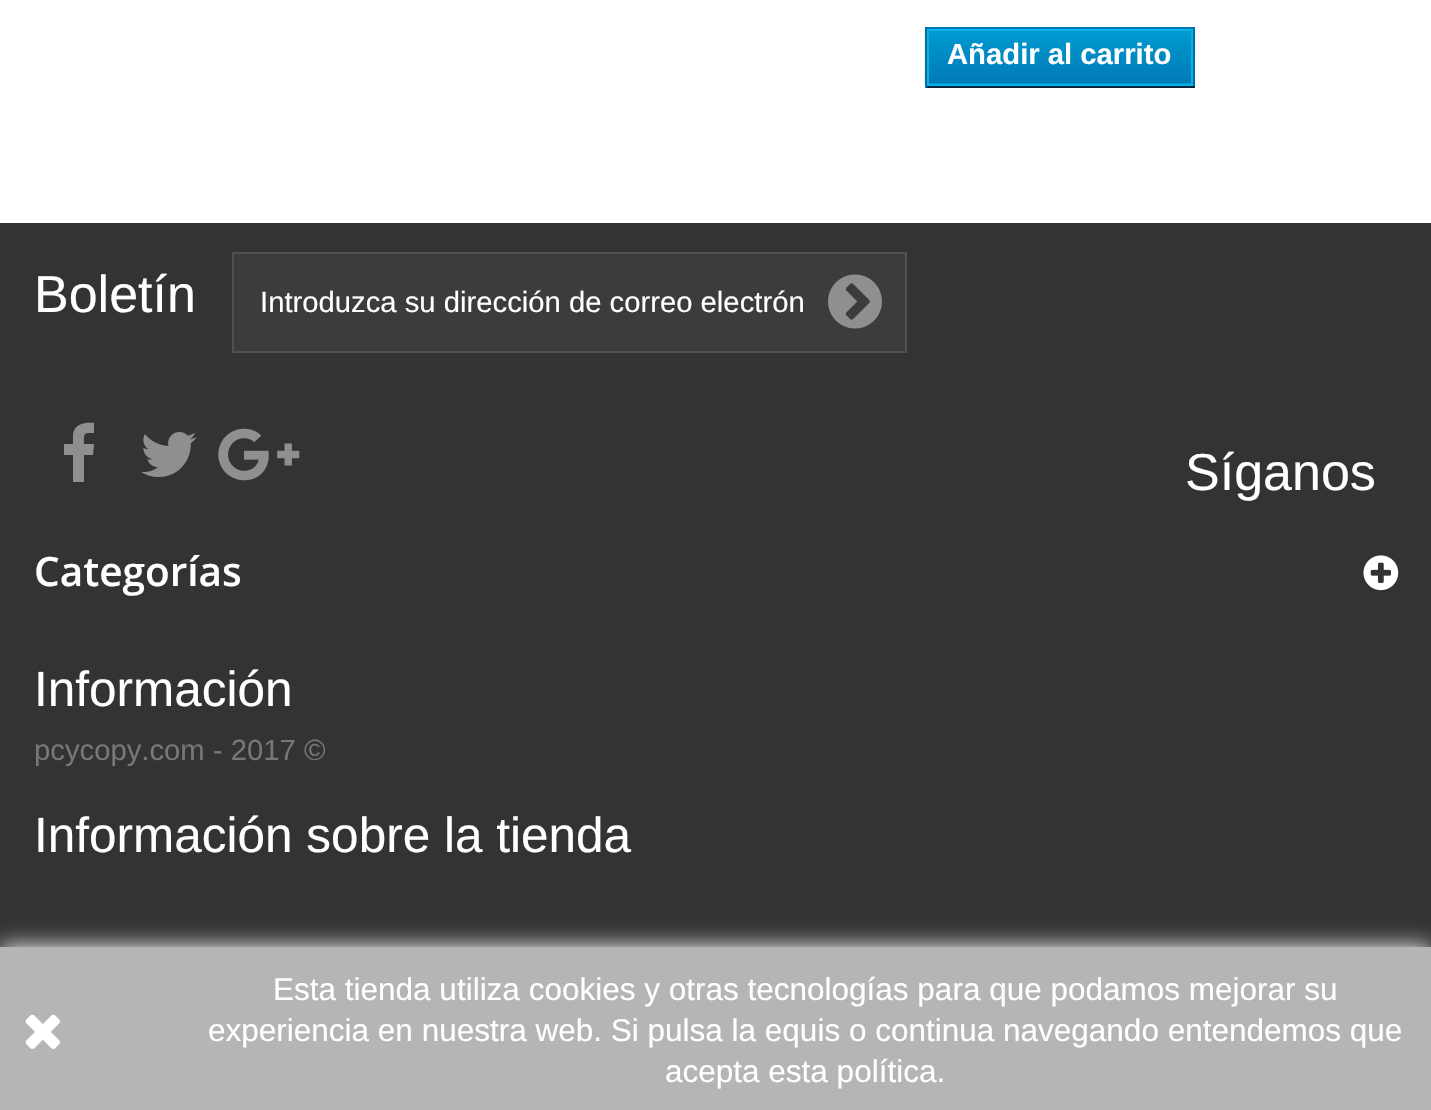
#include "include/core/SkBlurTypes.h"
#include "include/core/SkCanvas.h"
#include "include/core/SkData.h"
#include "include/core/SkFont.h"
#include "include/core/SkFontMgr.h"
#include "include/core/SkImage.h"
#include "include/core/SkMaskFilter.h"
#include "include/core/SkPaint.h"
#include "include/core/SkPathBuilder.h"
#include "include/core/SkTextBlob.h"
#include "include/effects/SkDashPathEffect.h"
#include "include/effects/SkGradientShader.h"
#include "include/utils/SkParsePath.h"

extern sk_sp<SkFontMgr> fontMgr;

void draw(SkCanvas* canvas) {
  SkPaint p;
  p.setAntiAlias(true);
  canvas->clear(SK_ColorWHITE);
  canvas->drawImageRect(SkImages::DeferredFromEncodedData(SkData::MakeFromFileName("images/1.png")), SkRect::MakeLTRB(924, 29, 925, 84), SkSamplingOptions());
  p.setColor(SkColorSetRGB(0, 121, 182));
  canvas->drawRect(SkRect::MakeLTRB(925, 27, 1195, 29), p);
  p.setColor(SkColorSetRGB(0, 111, 168));
  canvas->drawRect(SkRect::MakeLTRB(1193, 27, 1195, 88), p);
  p.setColor(SkColorSetRGB(1, 39, 64));
  canvas->drawRect(SkRect::MakeLTRB(925, 86, 1195, 88), p);
  p.setColor(SkColorSetRGB(0, 111, 168));
  canvas->drawRect(SkRect::MakeLTRB(925, 27, 927, 88), p);
  p.setColor(SkColorSetRGB(0, 154, 208));
  canvas->drawRect(SkRect::MakeLTRB(929, 31, 1191, 84), p);
  {
    const SkColor colors[] = {SkColorSetRGB(0, 154, 208), SkColorSetRGB(0, 122, 183)};
    const float stops[] = {0, 1};
    const SkPoint ends[] = {{1060, 31}, {1060, 83}};
    p.setShader(SkGradientShader::MakeLinear(ends, colors, stops, 2, SkTileMode::kClamp));
    p.setAlpha(255);
  }
  canvas->drawRect(SkRect::MakeLTRB(929, 35, 1191, 83), p);
  p.setStyle(SkPaint::kStroke_Style);
  p.setStrokeWidth(2);
  p.setShader(nullptr);
  p.setColor(SkColorSetRGB(6, 178, 230));
  canvas->drawRect(SkRect::MakeLTRB(928, 30, 1192, 85), p);
  p.setStyle(SkPaint::kFill_Style);
  p.setColor(SkColorSetRGB(51, 51, 51));
  canvas->drawRect(SkRect::MakeLTRB(0, 223, 1431, 947), p);
  p.setColor(SkColorSetRGB(60, 60, 60));
  canvas->drawRect(SkRect::MakeLTRB(233, 253, 906, 352), p);
  p.setStyle(SkPaint::kStroke_Style);
  p.setColor(SkColorSetRGB(81, 81, 81));
  canvas->drawRect(SkRect::MakeLTRB(233, 253, 906, 352), p);
  canvas->drawImageRect(SkImages::DeferredFromEncodedData(SkData::MakeFromFileName("images/2.png")), SkRect::MakeLTRB(828, 274, 882, 329), SkSamplingOptions());
  p.setStyle(SkPaint::kFill_Style);
  p.setColor(SkColorSetRGB(144, 143, 143));
  canvas->drawPath(SkPathBuilder().moveTo(94, 423).lineTo(94, 433).cubicTo(83, 433, 84, 433, 84, 444).lineTo(94, 444).lineTo(93, 455).lineTo(84, 455).lineTo(84, 482).lineTo(73, 482).lineTo(73, 455).lineTo(64, 455).lineTo(64, 444).lineTo(73, 444).lineTo(73, 434).cubicTo(75, 423, 86, 422, 94, 423).close().detach(), p);
  canvas->drawImageRect(SkImages::DeferredFromEncodedData(SkData::MakeFromFileName("images/3.png")), SkRect::MakeLTRB(141, 432, 197, 477), SkSamplingOptions());
  canvas->drawImageRect(SkImages::DeferredFromEncodedData(SkData::MakeFromFileName("images/4.png")), SkRect::MakeLTRB(218, 428, 300, 481), SkSamplingOptions());
  canvas->drawImageRect(SkImages::DeferredFromEncodedData(SkData::MakeFromFileName("images/5.png")), SkRect::MakeLTRB(1363, 555, 1399, 591), SkSamplingOptions());
  p.setColor(SK_ColorWHITE);
  p.setMaskFilter(SkMaskFilter::MakeBlur(kNormal_SkBlurStyle, 11));
  canvas->drawRect(SkRect::MakeLTRB(0, 947, 1431, 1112), p);
  p.setMaskFilter(nullptr);
  p.setColor(SkColorSetRGB(181, 181, 181));
  canvas->drawRect(SkRect::MakeLTRB(0, 947, 1431, 1110), p);
  canvas->drawImageRect(SkImages::DeferredFromEncodedData(SkData::MakeFromFileName("images/6.png")), SkRect::MakeLTRB(25, 1014, 60, 1049), SkSamplingOptions());
  SkFont font1(fontMgr->matchFamilyStyle("Liberation Sans", SkFontStyle::Bold()), 29.25f);
  font1.setSubpixel(true);
  p.setColor(SK_ColorWHITE);
  canvas->drawString("Añadir al carrito", 947, 64, font1, p);
  SkFont font2(fontMgr->matchFamilyStyle("Liberation Sans", SkFontStyle::Normal()), 52);
  font2.setSubpixel(true);
  canvas->drawString("Boletín", 34, 312, font2, p);
  SkFont font3(fontMgr->matchFamilyStyle("Liberation Sans", SkFontStyle::Normal()), 29.25f);
  font3.setSubpixel(true);
  canvas->drawString("Introduzca su dirección de correo electrón", 260, 312, font3, p);
  canvas->drawString("Síganos", 1185, 490, font2, p);
  SkFont font4(fontMgr->matchFamilyStyle("Open Sans", SkFontStyle(600, SkFontStyle::kNormal_Width, SkFontStyle::kUpright_Slant)), 40.5f);
  font4.setSubpixel(true);
  canvas->drawString("Categorías", 34, 586, font4, p);
  SkFont font5(fontMgr->matchFamilyStyle("Liberation Sans", SkFontStyle::Normal()), 49.5f);
  font5.setSubpixel(true);
  canvas->drawString("Información", 34, 706, font5, p);
  p.setColor(SkColorSetRGB(119, 119, 119));
  canvas->drawString("pcycopy.com - 2017 ©", 34, 760, font3, p);
  p.setColor(SK_ColorWHITE);
  canvas->drawString("Información sobre la tienda", 34, 852, font5, p);
  SkFont font6(fontMgr->matchFamilyStyle("Liberation Sans", SkFontStyle::Normal()), 31.5f);
  font6.setSubpixel(true);
  canvas->drawString("Esta tienda utiliza cookies y otras tecnologías para que podamos mejorar su", 273, 1000, font6, p);
  canvas->drawString("experiencia en nuestra web. Si pulsa la equis o continua navegando entendemos que", 208, 1041, font6, p);
  canvas->drawString("acepta esta política.", 665, 1082, font6, p);
}
